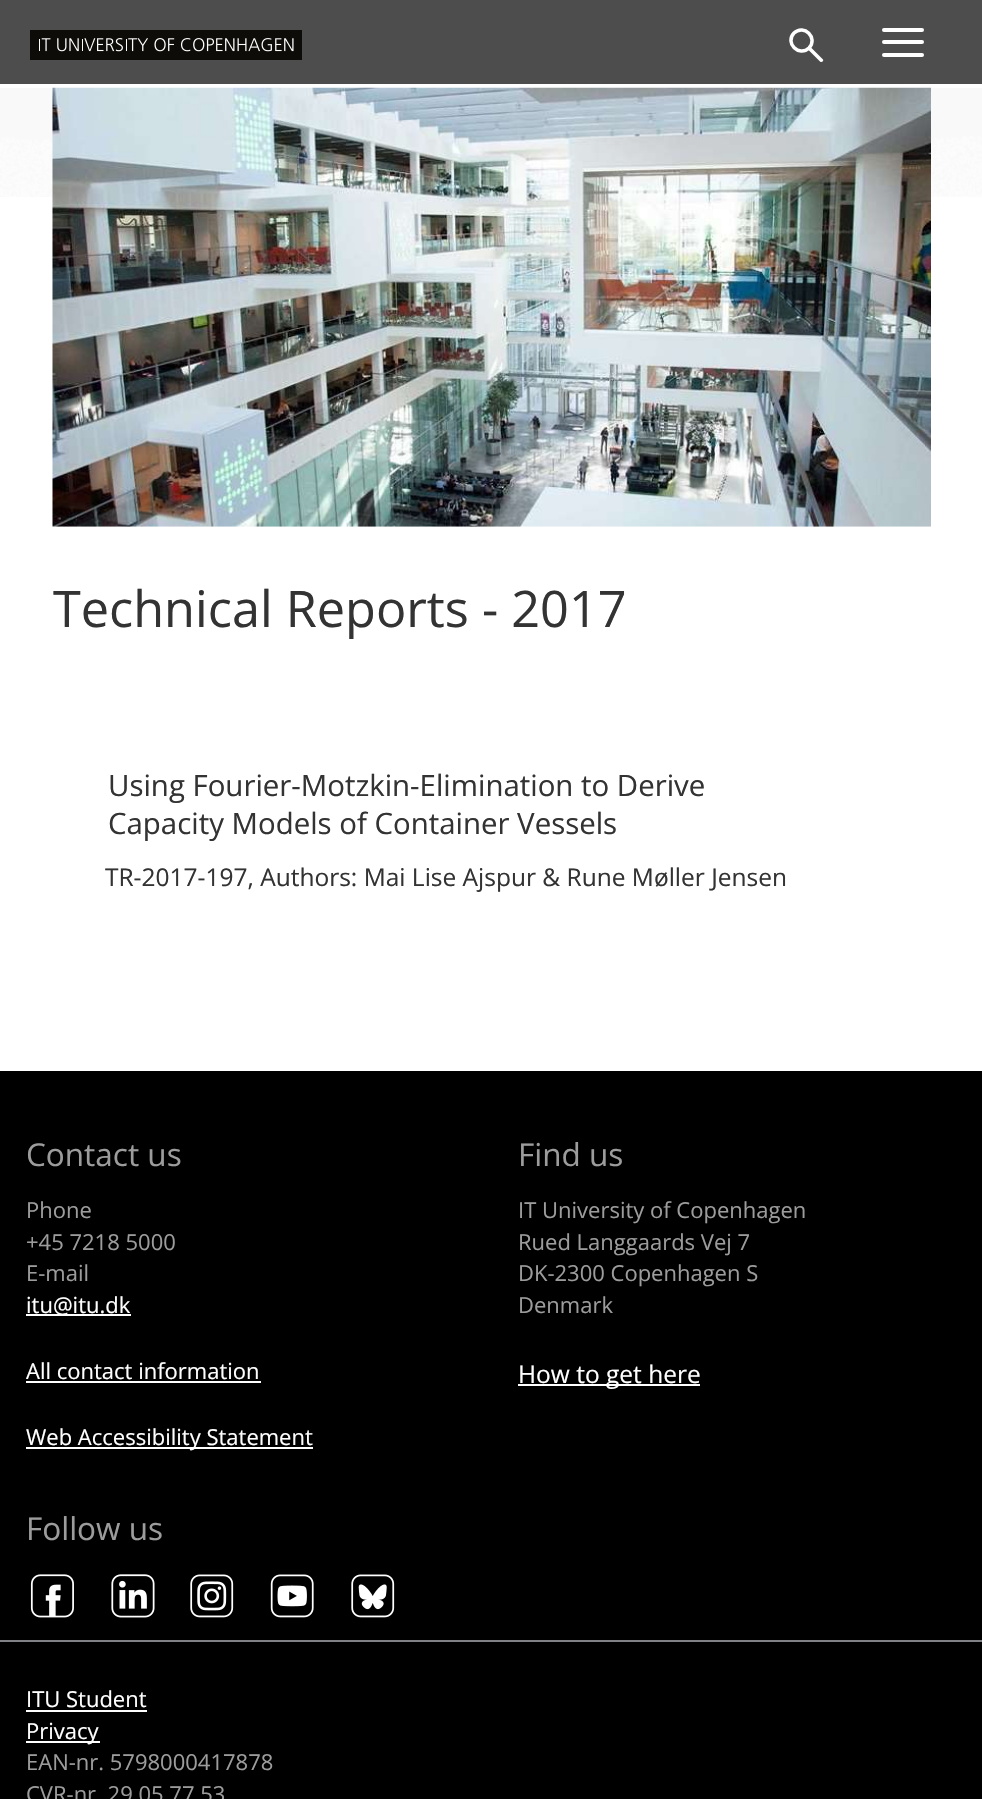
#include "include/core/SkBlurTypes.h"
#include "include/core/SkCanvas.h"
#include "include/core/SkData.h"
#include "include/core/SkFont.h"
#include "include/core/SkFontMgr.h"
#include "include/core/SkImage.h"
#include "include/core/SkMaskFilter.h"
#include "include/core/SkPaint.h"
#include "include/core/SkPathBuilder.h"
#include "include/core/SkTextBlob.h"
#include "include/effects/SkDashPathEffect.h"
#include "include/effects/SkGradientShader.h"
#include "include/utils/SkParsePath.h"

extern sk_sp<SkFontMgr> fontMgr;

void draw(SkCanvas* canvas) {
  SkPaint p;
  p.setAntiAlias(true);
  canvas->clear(SK_ColorWHITE);
  p.setColor(SkColorSetRGB(77, 77, 77));
  canvas->drawRect(SkRect::MakeLTRB(0, 0, 982, 84), p);
  canvas->drawImageRect(SkImages::DeferredFromEncodedData(SkData::MakeFromFileName("images/1.png")), SkRect::MakeLTRB(30, 30, 302, 60), SkSamplingOptions());
  p.setColor(SK_ColorWHITE);
  canvas->drawRoundRect(SkRect::MakeLTRB(882, 53, 924, 57), 2, 2, p);
  canvas->drawRoundRect(SkRect::MakeLTRB(882, 40, 924, 44), 2, 2, p);
  canvas->drawRoundRect(SkRect::MakeLTRB(882, 28, 924, 32), 2, 2, p);
  p.setStyle(SkPaint::kStroke_Style);
  p.setStrokeWidth(3.5f);
  canvas->drawPath(SkPathBuilder().moveTo(794, 33).cubicTo(804, 23.5f, 818.5f, 38, 809, 48).cubicTo(799, 57.5f, 784.5f, 43, 794, 33).close().detach(), p);
  p.setStyle(SkPaint::kFill_Style);
  canvas->drawPath(SkPathBuilder().moveTo(807.5f, 49).lineTo(810, 46.5f).lineTo(823, 59.5f).cubicTo(824, 61, 821.5f, 63, 820, 61.5f).close().detach(), p);
  canvas->drawImageRect(SkImages::DeferredFromEncodedData(SkData::MakeFromFileName("images/2.png")), SkRect::MakeLTRB(0, 88, 982, 197), SkSamplingOptions());
  canvas->drawImageRect(SkImages::DeferredFromEncodedData(SkData::MakeFromFileName("images/3.png")), SkRect::MakeLTRB(52, 87, 931, 527), SkSamplingOptions());
  p.setColor(SK_ColorBLACK);
  canvas->drawRect(SkRect::MakeLTRB(0, 1071, 982, 1799), p);
  p.setColor(SK_ColorWHITE);
  canvas->drawRect(SkRect::MakeLTRB(26, 1314, 131, 1316), p);
  canvas->drawRect(SkRect::MakeLTRB(26, 1381, 261, 1383), p);
  canvas->drawRect(SkRect::MakeLTRB(26, 1447, 313, 1449), p);
  canvas->drawRect(SkRect::MakeLTRB(518, 1384, 700, 1386), p);
  canvas->drawImageRect(SkImages::DeferredFromEncodedData(SkData::MakeFromFileName("images/4.png")), SkRect::MakeLTRB(30, 1574, 74, 1618), SkSamplingOptions());
  canvas->drawImageRect(SkImages::DeferredFromEncodedData(SkData::MakeFromFileName("images/5.png")), SkRect::MakeLTRB(111, 1574, 155, 1618), SkSamplingOptions());
  canvas->drawImageRect(SkImages::DeferredFromEncodedData(SkData::MakeFromFileName("images/6.png")), SkRect::MakeLTRB(190, 1574, 234, 1618), SkSamplingOptions());
  canvas->drawImageRect(SkImages::DeferredFromEncodedData(SkData::MakeFromFileName("images/7.png")), SkRect::MakeLTRB(270, 1574, 314, 1618), SkSamplingOptions());
  canvas->drawImageRect(SkImages::DeferredFromEncodedData(SkData::MakeFromFileName("images/8.png")), SkRect::MakeLTRB(351, 1574, 395, 1618), SkSamplingOptions());
  p.setColor(SkColorSetRGB(128, 129, 132));
  canvas->drawRect(SkRect::MakeLTRB(0, 1640, 982, 1642), p);
  p.setColor(SK_ColorWHITE);
  canvas->drawRect(SkRect::MakeLTRB(26, 1710, 147, 1712), p);
  canvas->drawRect(SkRect::MakeLTRB(26, 1741, 100, 1743), p);
  SkFont font1(fontMgr->matchFamilyStyle("Open Sans", SkFontStyle::Normal()), 50.4f);
  font1.setSubpixel(true);
  p.setColor(SkColorSetRGB(51, 51, 51));
  canvas->drawString("Technical Reports - 2017", 53, 627, font1, p);
  SkFont font2(fontMgr->matchFamilyStyle("Open Sans", SkFontStyle::Normal()), 29.4f);
  font2.setSubpixel(true);
  canvas->drawString("Using Fourier-Motzkin-Elimination to Derive", 108, 796, font2, p);
  canvas->drawString("Capacity Models of Container Vessels", 108, 834, font2, p);
  SkFont font3(fontMgr->matchFamilyStyle("Open Sans", SkFontStyle::Normal()), 24.5f);
  font3.setSubpixel(true);
  canvas->drawString("TR-2017-197, Authors: Mai Lise Ajspur & Rune Møller Jensen", 105, 886, font3, p);
  SkFont font4(fontMgr->matchFamilyStyle("Open Sans", SkFontStyle::Normal()), 31.5f);
  font4.setSubpixel(true);
  p.setColor(SkColorSetRGB(156, 156, 156));
  canvas->drawString("Contact us", 26, 1166, font4, p);
  SkFont font5(fontMgr->matchFamilyStyle("Open Sans", SkFontStyle::Normal()), 22);
  font5.setSubpixel(true);
  canvas->drawString("Phone", 26, 1218, font5, p);
  canvas->drawString("+45 7218 5000", 26, 1250, font5, p);
  canvas->drawString("E-mail", 26, 1281, font5, p);
  p.setColor(SK_ColorWHITE);
  canvas->drawString("itu@itu.dk", 26, 1313, font5, p);
  canvas->drawString("All contact information", 26, 1379, font5, p);
  canvas->drawString("Web Accessibility Statement", 26, 1445, font5, p);
  p.setColor(SkColorSetRGB(156, 156, 156));
  canvas->drawString("Find us", 518, 1166, font4, p);
  canvas->drawString("IT University of Copenhagen", 518, 1218, font5, p);
  canvas->drawString("Rued Langgaards Vej 7", 518, 1250, font5, p);
  canvas->drawString("DK-2300 Copenhagen S", 518, 1281, font5, p);
  canvas->drawString("Denmark", 518, 1313, font5, p);
  p.setColor(SK_ColorWHITE);
  canvas->drawString("How to get here", 518, 1383, font3, p);
  p.setColor(SkColorSetRGB(156, 156, 156));
  canvas->drawString("Follow us", 26, 1540, font4, p);
  p.setColor(SK_ColorWHITE);
  canvas->drawString("ITU Student", 26, 1707, font5, p);
  canvas->drawString("Privacy", 26, 1739, font5, p);
  p.setColor(SkColorSetRGB(156, 156, 156));
  canvas->drawString("EAN-nr. 5798000417878", 26, 1770, font5, p);
  canvas->drawString("CVR-nr. 29 05 77 53", 26, 1802, font5, p);
}
